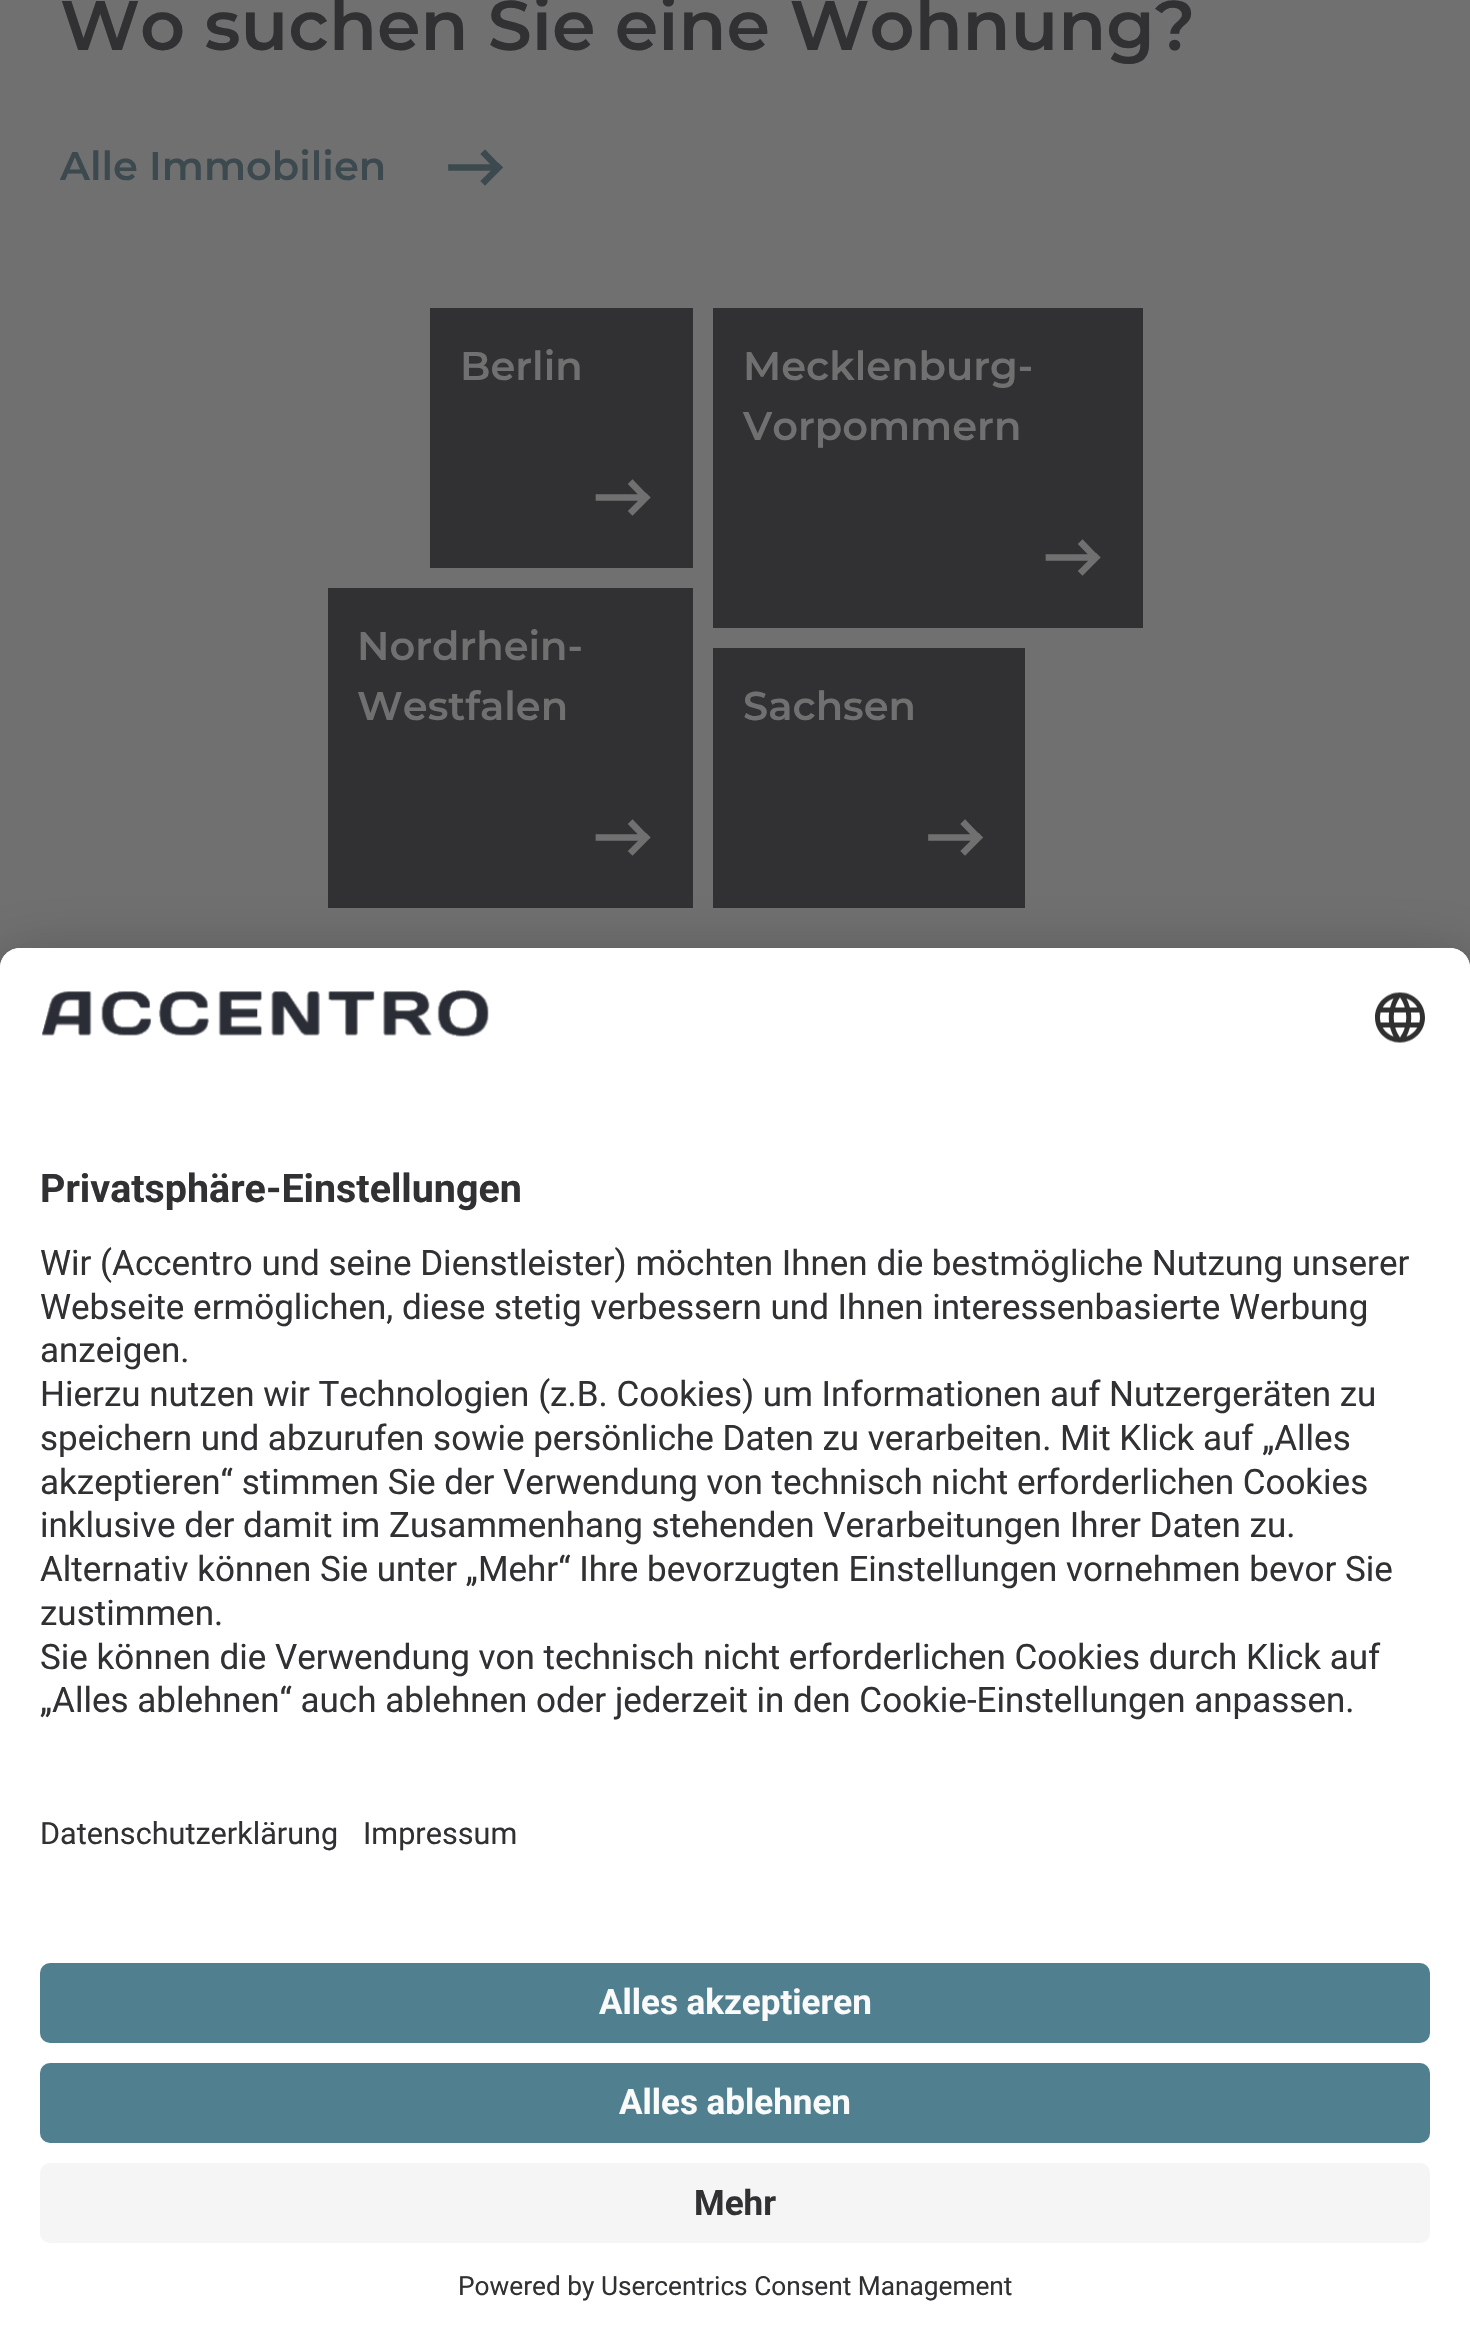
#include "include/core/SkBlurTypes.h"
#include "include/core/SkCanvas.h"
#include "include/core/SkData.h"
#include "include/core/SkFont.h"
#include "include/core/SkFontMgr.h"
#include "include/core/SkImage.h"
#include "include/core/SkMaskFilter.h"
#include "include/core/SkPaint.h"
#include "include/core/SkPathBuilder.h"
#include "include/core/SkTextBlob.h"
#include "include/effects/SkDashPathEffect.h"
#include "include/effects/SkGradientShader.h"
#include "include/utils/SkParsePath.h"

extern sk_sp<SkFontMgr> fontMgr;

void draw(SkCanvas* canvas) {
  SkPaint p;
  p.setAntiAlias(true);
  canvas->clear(SkColorSetRGB(112, 112, 112));
  p.setStyle(SkPaint::kStroke_Style);
  p.setStrokeWidth(6.7f);
  p.setStrokeCap(SkPaint::kSquare_Cap);
  p.setColor(SkColorSetRGB(60, 74, 79));
  canvas->drawPath(SkPathBuilder().moveTo(485, 181).lineTo(498.5f, 167.5f).moveTo(485, 154).lineTo(497.5f, 167).moveTo(496.5f, 167.5f).lineTo(451.5f, 167.5f).detach(), p);
  p.setStyle(SkPaint::kFill_Style);
  p.setColor(SkColorSetRGB(49, 49, 52));
  canvas->drawRect(SkRect::MakeLTRB(430, 308, 693, 568), p);
  p.setStyle(SkPaint::kStroke_Style);
  p.setColor(SkColorSetRGB(112, 112, 112));
  canvas->drawPath(SkPathBuilder().moveTo(632.5f, 511).lineTo(646, 497.5f).moveTo(632.5f, 484).lineTo(645, 497).moveTo(644, 497.5f).lineTo(599, 497.5f).detach(), p);
  p.setStyle(SkPaint::kFill_Style);
  p.setColor(SkColorSetRGB(49, 49, 52));
  canvas->drawRect(SkRect::MakeLTRB(328, 588, 693, 908), p);
  p.setStyle(SkPaint::kStroke_Style);
  p.setColor(SkColorSetRGB(112, 112, 112));
  canvas->drawPath(SkPathBuilder().moveTo(632.5f, 851).lineTo(646, 837.5f).moveTo(632.5f, 824).lineTo(645, 837).moveTo(644, 837.5f).lineTo(599, 837.5f).detach(), p);
  p.setStyle(SkPaint::kFill_Style);
  p.setColor(SkColorSetRGB(49, 49, 52));
  canvas->drawRect(SkRect::MakeLTRB(713, 308, 1143, 628), p);
  p.setStyle(SkPaint::kStroke_Style);
  p.setColor(SkColorSetRGB(112, 112, 112));
  canvas->drawPath(SkPathBuilder().moveTo(1082.5f, 571).lineTo(1096, 557.5f).moveTo(1082.5f, 544).lineTo(1095, 557).moveTo(1094, 557.5f).lineTo(1049, 557.5f).detach(), p);
  p.setStyle(SkPaint::kFill_Style);
  p.setColor(SkColorSetRGB(49, 49, 52));
  canvas->drawRect(SkRect::MakeLTRB(713, 648, 1025, 908), p);
  p.setStyle(SkPaint::kStroke_Style);
  p.setColor(SkColorSetRGB(112, 112, 112));
  canvas->drawPath(SkPathBuilder().moveTo(965, 851).lineTo(978.5f, 837.5f).moveTo(965, 824).lineTo(977.5f, 837).moveTo(976.5f, 837.5f).lineTo(931.5f, 837.5f).detach(), p);
  p.setStyle(SkPaint::kFill_Style);
  p.setColor(SkColorSetARGB(77, 0, 0, 0));
  p.setMaskFilter(SkMaskFilter::MakeBlur(kNormal_SkBlurStyle, 35));
  canvas->drawRoundRect(SkRect::MakeLTRB(0, 998, 1470, 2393), 20, 20, p);
  p.setMaskFilter(nullptr);
  p.setColor(SkColorSetARGB(56, 0, 0, 0));
  p.setMaskFilter(SkMaskFilter::MakeBlur(kNormal_SkBlurStyle, 32.5f));
  canvas->drawRoundRect(SkRect::MakeLTRB(0, 960, 1470, 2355), 20, 20, p);
  p.setMaskFilter(nullptr);
  p.setColor(SK_ColorWHITE);
  canvas->drawPath(SkPathBuilder().moveTo(20, 948).lineTo(1450, 948).cubicTo(1461, 948, 1470, 957, 1470, 968).lineTo(1470, 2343).lineTo(0, 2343).lineTo(0, 968).cubicTo(0, 957, 9, 948, 20, 948).close().detach(), p);
  canvas->drawPath(SkPathBuilder().moveTo(20, 948).lineTo(1450, 948).cubicTo(1461, 948, 1470, 957, 1470, 968).lineTo(1470, 1933).lineTo(0, 1933).lineTo(0, 968).cubicTo(0, 957, 9, 948, 20, 948).close().detach(), p);
  canvas->drawImageRect(SkImages::DeferredFromEncodedData(SkData::MakeFromFileName("images/1.png")), SkRect::MakeLTRB(42, 990, 489, 1037), SkSamplingOptions());
  canvas->drawImageRect(SkImages::DeferredFromEncodedData(SkData::MakeFromFileName("images/2.png")), SkRect::MakeLTRB(1375, 992, 1425, 1043), SkSamplingOptions());
  p.setColor(SkColorSetRGB(80, 128, 144));
  canvas->drawRoundRect(SkRect::MakeLTRB(40, 1963, 1430, 2043), 10, 10, p);
  canvas->drawRoundRect(SkRect::MakeLTRB(40, 2063, 1430, 2143), 10, 10, p);
  p.setColor(SkColorSetRGB(245, 245, 245));
  canvas->drawRoundRect(SkRect::MakeLTRB(40, 2163, 1430, 2243), 10, 10, p);
  SkFont font1(fontMgr->matchFamilyStyle("Montserrat", SkFontStyle(600, SkFontStyle::kNormal_Width, SkFontStyle::kUpright_Slant)), 70);
  font1.setSubpixel(true);
  p.setColor(SkColorSetRGB(49, 49, 52));
  canvas->drawString("Wo suchen Sie eine Wohnung?", 60, 50, font1, p);
  SkFont font2(fontMgr->matchFamilyStyle("Montserrat", SkFontStyle(600, SkFontStyle::kNormal_Width, SkFontStyle::kUpright_Slant)), 40);
  font2.setSubpixel(true);
  p.setColor(SkColorSetRGB(60, 74, 79));
  canvas->drawString("Alle Immobilien", 60, 180, font2, p);
  p.setColor(SkColorSetRGB(112, 112, 112));
  canvas->drawString("Berlin", 460, 380, font2, p);
  canvas->drawString("Nordrhein-", 357, 660, font2, p);
  canvas->drawString("Westfalen", 357, 720, font2, p);
  canvas->drawString("Mecklenburg-", 743, 380, font2, p);
  canvas->drawString("Vorpommern", 743, 440, font2, p);
  canvas->drawString("Sachsen", 743, 720, font2, p);
  SkFont font3(fontMgr->matchFamilyStyle("Roboto", SkFontStyle::Bold()), 39.4f);
  font3.setSubpixel(true);
  p.setColor(SkColorSetRGB(49, 49, 52));
  canvas->drawString("Privatsphäre-Einstellungen", 40, 1202, font3, p);
  SkFont font4(fontMgr->matchFamilyStyle("Roboto", SkFontStyle::Normal()), 35);
  font4.setSubpixel(true);
  canvas->drawString("Wir (Accentro und seine Dienstleister) möchten Ihnen die bestmögliche Nutzung unserer", 40, 1275, font4, p);
  canvas->drawString("Webseite ermöglichen, diese stetig verbessern und Ihnen interessenbasierte Werbung", 40, 1319, font4, p);
  canvas->drawString("anzeigen.", 40, 1362, font4, p);
  canvas->drawString("Hierzu nutzen wir Technologien (z.B. Cookies) um Informationen auf Nutzergeräten zu", 40, 1406, font4, p);
  canvas->drawString("speichern und abzurufen sowie persönliche Daten zu verarbeiten. Mit Klick auf „Alles", 40, 1450, font4, p);
  canvas->drawString("akzeptieren“ stimmen Sie der Verwendung von technisch nicht erforderlichen Cookies", 40, 1494, font4, p);
  canvas->drawString("inklusive der damit im Zusammenhang stehenden Verarbeitungen Ihrer Daten zu.", 40, 1537, font4, p);
  canvas->drawString("Alternativ können Sie unter „Mehr“ Ihre bevorzugten Einstellungen vornehmen bevor Sie", 40, 1581, font4, p);
  canvas->drawString("zustimmen.", 40, 1625, font4, p);
  canvas->drawString("Sie können die Verwendung von technisch nicht erforderlichen Cookies durch Klick auf", 40, 1669, font4, p);
  canvas->drawString("„Alles ablehnen“ auch ablehnen oder jederzeit in den Cookie-Einstellungen anpassen.", 40, 1712, font4, p);
  SkFont font5(fontMgr->matchFamilyStyle("Roboto", SkFontStyle::Normal()), 30.6f);
  font5.setSubpixel(true);
  canvas->drawString("Datenschutzerklärung", 40, 1844, font5, p);
  canvas->drawString("Impressum", 363, 1844, font5, p);
  SkFont font6(fontMgr->matchFamilyStyle("Roboto", SkFontStyle::Bold()), 35);
  font6.setSubpixel(true);
  p.setColor(SkColorSetRGB(250, 250, 250));
  canvas->drawString("Alles akzeptieren", 599, 2014, font6, p);
  canvas->drawString("Alles ablehnen", 619, 2114, font6, p);
  p.setColor(SkColorSetRGB(49, 49, 52));
  canvas->drawString("Mehr", 694, 2215, font6, p);
  SkFont font7(fontMgr->matchFamilyStyle("Roboto", SkFontStyle::Normal()), 26.25f);
  font7.setSubpixel(true);
  canvas->drawString("Powered by Usercentrics Consent Management", 458, 2295, font7, p);
}
